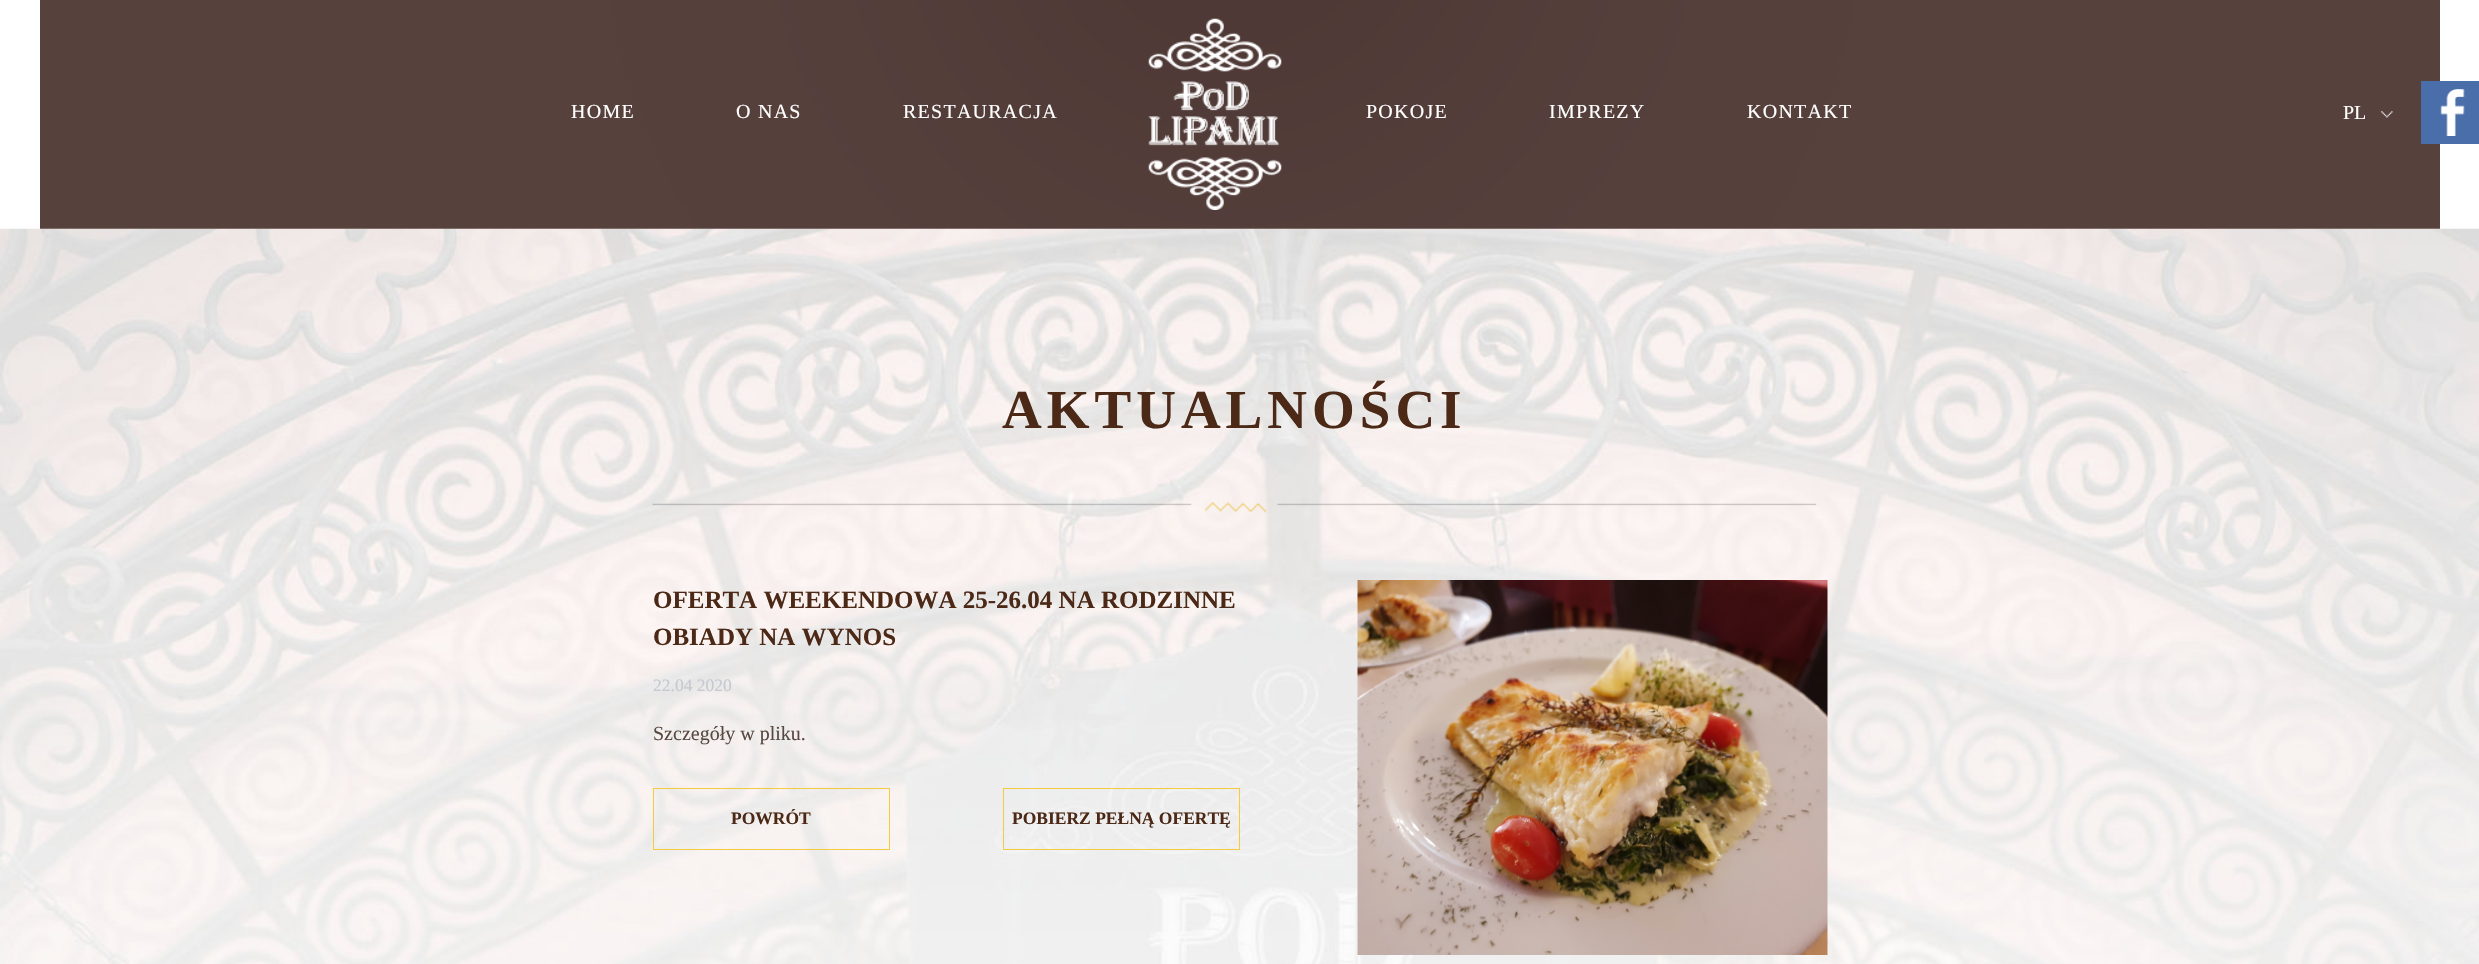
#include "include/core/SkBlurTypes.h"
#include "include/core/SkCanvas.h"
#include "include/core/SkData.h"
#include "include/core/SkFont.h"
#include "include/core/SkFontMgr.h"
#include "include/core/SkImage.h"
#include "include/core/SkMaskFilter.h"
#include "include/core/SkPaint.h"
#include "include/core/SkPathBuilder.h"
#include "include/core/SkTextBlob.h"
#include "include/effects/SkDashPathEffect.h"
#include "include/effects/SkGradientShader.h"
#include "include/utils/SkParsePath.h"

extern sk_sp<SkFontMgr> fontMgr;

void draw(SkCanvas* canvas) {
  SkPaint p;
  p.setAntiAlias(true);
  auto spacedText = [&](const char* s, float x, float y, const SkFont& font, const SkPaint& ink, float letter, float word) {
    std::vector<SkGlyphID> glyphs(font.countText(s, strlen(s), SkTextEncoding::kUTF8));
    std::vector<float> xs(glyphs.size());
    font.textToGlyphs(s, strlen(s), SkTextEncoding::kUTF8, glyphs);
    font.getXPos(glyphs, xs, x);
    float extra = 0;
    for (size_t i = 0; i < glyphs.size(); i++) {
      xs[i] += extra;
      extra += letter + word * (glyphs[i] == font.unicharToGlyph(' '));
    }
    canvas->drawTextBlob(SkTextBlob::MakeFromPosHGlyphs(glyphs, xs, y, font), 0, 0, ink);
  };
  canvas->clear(SK_ColorWHITE);
  canvas->drawImageRect(SkImages::DeferredFromEncodedData(SkData::MakeFromFileName("images/5.png")), SkRect::MakeLTRB(0, 228, 2479, 964), SkSamplingOptions());
  canvas->drawImageRect(SkImages::DeferredFromEncodedData(SkData::MakeFromFileName("images/1.png")), SkRect::MakeLTRB(40, 0, 2440, 229), SkSamplingOptions());
  canvas->drawImageRect(SkImages::DeferredFromEncodedData(SkData::MakeFromFileName("images/2.png")), SkRect::MakeLTRB(1148, 18, 1282, 210), SkSamplingOptions());
  canvas->drawImageRect(SkImages::DeferredFromEncodedData(SkData::MakeFromFileName("images/3.png")), SkRect::MakeLTRB(2381, 111, 2393, 118), SkSamplingOptions());
  canvas->drawImageRect(SkImages::DeferredFromEncodedData(SkData::MakeFromFileName("images/4.png")), SkRect::MakeLTRB(2421, 81, 2479, 144), SkSamplingOptions());
  canvas->drawImageRect(SkImages::DeferredFromEncodedData(SkData::MakeFromFileName("images/6.png")), SkRect::MakeLTRB(652, 502, 1817, 513), SkSamplingOptions());
  p.setStyle(SkPaint::kStroke_Style);
  p.setStrokeWidth(1);
  p.setColor(SkColorSetRGB(244, 203, 62));
  canvas->drawRect(SkRect::MakeLTRB(653.5f, 788.5f, 889.5f, 849.5f), p);
  canvas->drawRect(SkRect::MakeLTRB(1003.5f, 788.5f, 1239.5f, 849.5f), p);
  canvas->drawImageRect(SkImages::DeferredFromEncodedData(SkData::MakeFromFileName("images/7.png")), SkRect::MakeLTRB(1357, 580, 1828, 955), SkSamplingOptions());
  SkFont font1(fontMgr->matchFamilyStyle("Liberation Serif", SkFontStyle::Normal()), 20);
  font1.setSubpixel(true);
  p.setStyle(SkPaint::kFill_Style);
  p.setColor(SK_ColorWHITE);
  spacedText("HOME", 571, 118, font1, p, 1.25f, 0);
  spacedText("O NAS", 736, 118, font1, p, 1.25f, 0);
  spacedText("RESTAURACJA", 903, 118, font1, p, 1.25f, 0);
  spacedText("POKOJE", 1366, 118, font1, p, 1.25f, 0);
  spacedText("IMPREZY", 1549, 118, font1, p, 1.25f, 0);
  spacedText("KONTAKT", 1747, 118, font1, p, 1.25f, 0);
  canvas->drawString("PL", 2343, 119, font1, p);
  SkFont font2(fontMgr->matchFamilyStyle("Liberation Serif", SkFontStyle::Bold()), 55);
  font2.setSubpixel(true);
  p.setColor(SkColorSetRGB(76, 41, 23));
  spacedText("AKTUALNOŚCI", 1002, 428, font2, p, 5, 0);
  SkFont font3(fontMgr->matchFamilyStyle("Liberation Serif", SkFontStyle::Bold()), 25);
  font3.setSubpixel(true);
  canvas->drawString("OFERTA WEEKENDOWA 25-26.04 NA RODZINNE", 653, 608, font3, p);
  canvas->drawString("OBIADY NA WYNOS", 653, 645, font3, p);
  SkFont font4(fontMgr->matchFamilyStyle("Liberation Serif", SkFontStyle::Normal()), 17.5f);
  font4.setSubpixel(true);
  p.setColor(SkColorSetRGB(198, 201, 208));
  canvas->drawString("22.04 2020", 653, 691, font4, p);
  p.setColor(SkColorSetRGB(88, 72, 64));
  canvas->drawString("Szczegóły w pliku.", 653, 740, font1, p);
  SkFont font5(fontMgr->matchFamilyStyle("Liberation Serif", SkFontStyle::Bold()), 17.5f);
  font5.setSubpixel(true);
  p.setColor(SkColorSetRGB(76, 41, 23));
  canvas->drawString("POWRÓT", 731, 824, font5, p);
  canvas->drawString("POBIERZ PEŁNĄ OFERTĘ", 1012, 824, font5, p);
}
